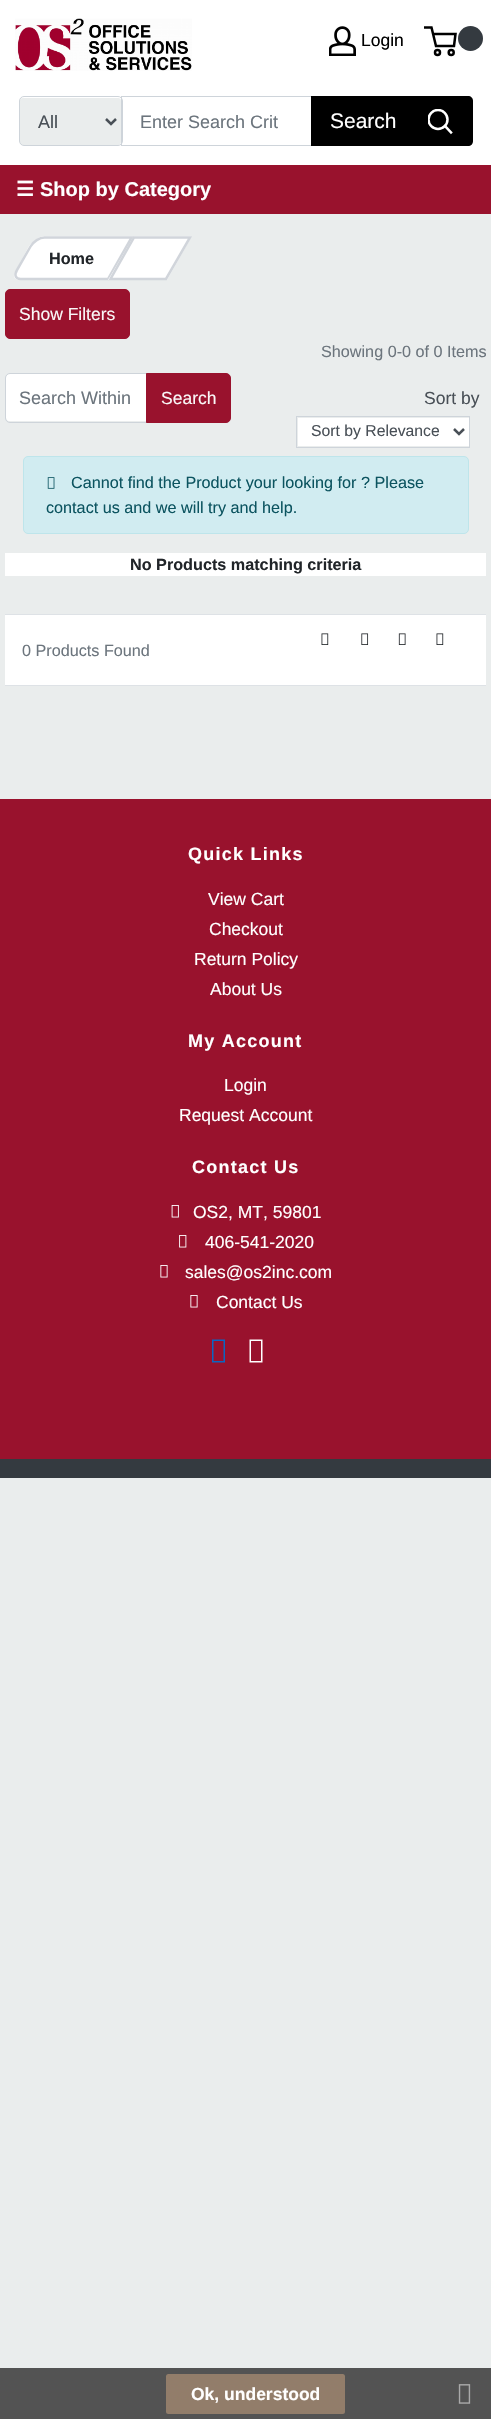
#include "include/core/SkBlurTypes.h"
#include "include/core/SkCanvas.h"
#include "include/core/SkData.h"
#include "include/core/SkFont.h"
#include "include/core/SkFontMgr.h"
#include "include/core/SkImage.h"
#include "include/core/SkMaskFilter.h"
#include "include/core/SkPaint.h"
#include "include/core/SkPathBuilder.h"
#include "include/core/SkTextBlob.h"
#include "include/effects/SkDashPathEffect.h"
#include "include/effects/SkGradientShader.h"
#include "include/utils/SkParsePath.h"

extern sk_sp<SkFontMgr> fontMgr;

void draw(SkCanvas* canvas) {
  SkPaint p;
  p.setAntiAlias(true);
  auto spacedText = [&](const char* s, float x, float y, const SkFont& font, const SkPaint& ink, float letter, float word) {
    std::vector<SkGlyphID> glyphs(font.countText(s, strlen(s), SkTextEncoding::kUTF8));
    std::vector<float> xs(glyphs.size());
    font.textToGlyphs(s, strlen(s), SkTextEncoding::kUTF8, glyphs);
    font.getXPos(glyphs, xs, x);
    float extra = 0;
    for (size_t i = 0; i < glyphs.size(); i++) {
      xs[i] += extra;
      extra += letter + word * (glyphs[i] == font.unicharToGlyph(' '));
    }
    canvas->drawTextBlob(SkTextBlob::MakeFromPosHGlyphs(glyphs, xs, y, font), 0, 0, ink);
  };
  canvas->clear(SkColorSetRGB(234, 237, 237));
  p.setColor(SK_ColorWHITE);
  canvas->drawRect(SkRect::MakeLTRB(0, 0, 491, 165), p);
  canvas->drawImageRect(SkImages::DeferredFromEncodedData(SkData::MakeFromFileName("images/1.png")), SkRect::MakeLTRB(329, 26, 356, 56), SkSamplingOptions());
  p.setStyle(SkPaint::kStroke_Style);
  p.setStrokeWidth(2.5f);
  p.setColor(SK_ColorBLACK);
  canvas->drawPath(SkPathBuilder().moveTo(433, 34).lineTo(455.5f, 34).lineTo(454, 46).lineTo(436, 46).lineTo(431.5f, 27.5f).lineTo(424, 27.5f).detach(), p);
  p.setStyle(SkPaint::kFill_Style);
  p.setColor(SkColorSetRGB(52, 58, 64));
  canvas->drawCircle(470.5f, 38.5f, 12.5f, p);
  p.setStyle(SkPaint::kStroke_Style);
  p.setColor(SK_ColorBLACK);
  canvas->drawCircle(437.5f, 52.5f, 2.5f, p);
  canvas->drawCircle(451.2f, 52.5f, 2.5f, p);
  canvas->drawImageRect(SkImages::DeferredFromEncodedData(SkData::MakeFromFileName("images/2.png")), SkRect::MakeLTRB(15, 18, 192, 71), SkSamplingOptions());
  p.setStyle(SkPaint::kFill_Style);
  p.setColor(SkColorSetRGB(234, 237, 237));
  canvas->drawRoundRect(SkRect::MakeLTRB(20, 98, 121, 145), 3, 3, p);
  p.setStyle(SkPaint::kStroke_Style);
  p.setStrokeWidth(1);
  p.setColor(SkColorSetRGB(206, 212, 218));
  canvas->drawRoundRect(SkRect::MakeLTRB(19.5f, 96.5f, 122.5f, 145.5f), 4.5f, 4.5f, p);
  p.setStrokeWidth(2.5f);
  p.setColor(SkColorSetRGB(73, 80, 87));
  canvas->drawPath(SkPathBuilder().moveTo(106, 119).lineTo(111, 124).lineTo(116, 119).detach(), p);
  p.setStrokeWidth(1);
  p.setColor(SkColorSetRGB(206, 212, 218));
  canvas->drawRect(SkRect::MakeLTRB(121.5f, 96.5f, 312.5f, 145.5f), p);
  p.setStyle(SkPaint::kFill_Style);
  p.setColor(SK_ColorBLACK);
  canvas->drawPath(SkPathBuilder().moveTo(311, 96).lineTo(468, 96).cubicTo(471, 96, 473, 98, 473, 101).lineTo(473, 141).cubicTo(473, 144, 471, 146, 468, 146).lineTo(311, 146).close().detach(), p);
  p.setStyle(SkPaint::kStroke_Style);
  p.setStrokeWidth(2.5f);
  p.setStrokeCap(SkPaint::kSquare_Cap);
  p.setColor(SK_ColorWHITE);
  canvas->drawPath(SkPathBuilder().moveTo(451, 132.5f).lineTo(445, 126).detach(), p);
  canvas->save();
  canvas->clipRect(SkRect::MakeLTRB(428, 109, 455, 136));
  p.setStrokeCap(SkPaint::kButt_Cap);
  canvas->drawCircle(438, 119.5f, 9.5f, p);
  canvas->restore();
  p.setStyle(SkPaint::kFill_Style);
  p.setColor(SkColorSetRGB(153, 18, 45));
  canvas->drawRect(SkRect::MakeLTRB(0, 165, 491, 214), p);
  p.setColor(SK_ColorWHITE);
  canvas->drawPath(SkPathBuilder().moveTo(45, 236).lineTo(134, 236).lineTo(108, 280).lineTo(20, 280).cubicTo(14, 280, 12, 276, 16, 270).lineTo(29, 246).cubicTo(33, 241, 40, 236, 45, 236).close().detach(), p);
  p.setStyle(SkPaint::kStroke_Style);
  p.setColor(SkColorSetRGB(209, 213, 219));
  canvas->drawPath(SkPathBuilder().moveTo(44.5f, 237.5f).lineTo(131.5f, 237.5f).lineTo(108, 279).lineTo(20.5f, 279).cubicTo(15.5f, 279, 14, 275, 17, 270).lineTo(30.5f, 246.5f).cubicTo(33.5f, 241.5f, 39.5f, 237.5f, 44.5f, 237.5f).close().detach(), p);
  p.setStyle(SkPaint::kFill_Style);
  p.setColor(SK_ColorWHITE);
  canvas->drawPath(SkPathBuilder().moveTo(134, 236).lineTo(192, 236).lineTo(167, 280).lineTo(108, 280).close().detach(), p);
  p.setStyle(SkPaint::kStroke_Style);
  p.setColor(SkColorSetRGB(209, 213, 219));
  canvas->drawPath(SkPathBuilder().moveTo(134, 237.5f).lineTo(190, 237.5f).lineTo(166, 279).lineTo(110.5f, 279).close().detach(), p);
  p.setStyle(SkPaint::kFill_Style);
  p.setColor(SkColorSetRGB(153, 18, 45));
  canvas->drawRoundRect(SkRect::MakeLTRB(5.5f, 289.5f, 129.5f, 338.5f), 4.5f, 4.5f, p);
  p.setStyle(SkPaint::kStroke_Style);
  p.setStrokeWidth(1);
  canvas->drawRoundRect(SkRect::MakeLTRB(5.5f, 289.5f, 129.5f, 338.5f), 4.5f, 4.5f, p);
  p.setStyle(SkPaint::kFill_Style);
  p.setColor(SK_ColorWHITE);
  canvas->drawPath(SkPathBuilder().moveTo(9, 374).lineTo(146, 374).lineTo(146, 421).lineTo(9, 421).cubicTo(7.5f, 421, 6, 419.5f, 6, 418).lineTo(6, 377).cubicTo(6, 375.5f, 7.5f, 374, 9, 374).close().detach(), p);
  p.setStyle(SkPaint::kStroke_Style);
  p.setColor(SkColorSetRGB(206, 212, 218));
  canvas->drawPath(SkPathBuilder().moveTo(10, 373.5f).lineTo(147.5f, 373.5f).lineTo(147.5f, 422.5f).lineTo(10, 422.5f).cubicTo(7.5f, 422.5f, 5.5f, 420.5f, 5.5f, 418).lineTo(5.5f, 378).cubicTo(5.5f, 375.5f, 7.5f, 373.5f, 10, 373.5f).close().detach(), p);
  p.setStyle(SkPaint::kFill_Style);
  p.setColor(SkColorSetRGB(153, 18, 45));
  canvas->drawPath(SkPathBuilder().moveTo(146.5f, 373.5f).lineTo(226, 373.5f).cubicTo(228.5f, 373.5f, 230.5f, 375.5f, 230.5f, 378).lineTo(230.5f, 418).cubicTo(230.5f, 420.5f, 228.5f, 422.5f, 226, 422.5f).lineTo(146.5f, 422.5f).close().detach(), p);
  p.setStyle(SkPaint::kStroke_Style);
  canvas->drawPath(SkPathBuilder().moveTo(146.5f, 373.5f).lineTo(226, 373.5f).cubicTo(228.5f, 373.5f, 230.5f, 375.5f, 230.5f, 378).lineTo(230.5f, 418).cubicTo(230.5f, 420.5f, 228.5f, 422.5f, 226, 422.5f).lineTo(146.5f, 422.5f).close().detach(), p);
  p.setStyle(SkPaint::kFill_Style);
  p.setColor(SK_ColorWHITE);
  canvas->drawRect(SkRect::MakeLTRB(298, 418, 469, 446), p);
  p.setStyle(SkPaint::kStroke_Style);
  p.setColor(SkColorSetRGB(206, 212, 218));
  canvas->drawRect(SkRect::MakeLTRB(296.5f, 416.5f, 469.5f, 447.5f), p);
  p.setStrokeWidth(2.5f);
  p.setColor(SkColorSetRGB(73, 80, 87));
  canvas->drawPath(SkPathBuilder().moveTo(454, 429).lineTo(459, 434).lineTo(464, 429).detach(), p);
  p.setStyle(SkPaint::kFill_Style);
  p.setColor(SkColorSetRGB(209, 236, 241));
  canvas->drawRoundRect(SkRect::MakeLTRB(23.5f, 456.5f, 468.5f, 533.5f), 4.5f, 4.5f, p);
  p.setStyle(SkPaint::kStroke_Style);
  p.setStrokeWidth(1);
  p.setColor(SkColorSetRGB(190, 229, 235));
  canvas->drawRoundRect(SkRect::MakeLTRB(23.5f, 456.5f, 468.5f, 533.5f), 4.5f, 4.5f, p);
  canvas->drawImageRect(SkImages::DeferredFromEncodedData(SkData::MakeFromFileName("images/3.png")), SkRect::MakeLTRB(47, 477, 55, 489), SkSamplingOptions());
  p.setStyle(SkPaint::kFill_Style);
  p.setColor(SK_ColorWHITE);
  canvas->drawRect(SkRect::MakeLTRB(5, 553, 486, 576), p);
  canvas->drawRect(SkRect::MakeLTRB(5, 615, 486, 685), p);
  p.setColor(SkColorSetRGB(222, 226, 230));
  canvas->drawRect(SkRect::MakeLTRB(5, 614, 486, 615), p);
  canvas->drawRect(SkRect::MakeLTRB(5, 685, 486, 686), p);
  canvas->drawImageRect(SkImages::DeferredFromEncodedData(SkData::MakeFromFileName("images/4.png")), SkRect::MakeLTRB(321, 633, 329, 645), SkSamplingOptions());
  canvas->drawImageRect(SkImages::DeferredFromEncodedData(SkData::MakeFromFileName("images/5.png")), SkRect::MakeLTRB(361, 633, 369, 645), SkSamplingOptions());
  canvas->drawImageRect(SkImages::DeferredFromEncodedData(SkData::MakeFromFileName("images/6.png")), SkRect::MakeLTRB(398, 633, 406, 645), SkSamplingOptions());
  canvas->drawImageRect(SkImages::DeferredFromEncodedData(SkData::MakeFromFileName("images/4.png")), SkRect::MakeLTRB(436, 633, 444, 645), SkSamplingOptions());
  p.setColor(SkColorSetRGB(153, 18, 45));
  canvas->drawRect(SkRect::MakeLTRB(0, 799, 491, 1459), p);
  canvas->drawImageRect(SkImages::DeferredFromEncodedData(SkData::MakeFromFileName("images/7.png")), SkRect::MakeLTRB(171, 1205, 179, 1218), SkSamplingOptions());
  canvas->drawImageRect(SkImages::DeferredFromEncodedData(SkData::MakeFromFileName("images/8.png")), SkRect::MakeLTRB(179, 1235, 187, 1248), SkSamplingOptions());
  canvas->drawImageRect(SkImages::DeferredFromEncodedData(SkData::MakeFromFileName("images/9.png")), SkRect::MakeLTRB(160, 1265, 168, 1278), SkSamplingOptions());
  canvas->drawImageRect(SkImages::DeferredFromEncodedData(SkData::MakeFromFileName("images/9.png")), SkRect::MakeLTRB(190, 1295, 198, 1308), SkSamplingOptions());
  p.setColor(SkColorSetRGB(10, 102, 194));
  canvas->drawPath(SkPathBuilder().moveTo(212, 1362.5f).lineTo(212, 1339.5f).lineTo(225, 1339.5f).lineTo(225, 1362.5f).close().moveTo(213.5f, 1361).lineTo(223.5f, 1361).lineTo(223.5f, 1341).lineTo(213.5f, 1341).close().detach(), p);
  p.setColor(SK_ColorWHITE);
  canvas->drawPath(SkPathBuilder().moveTo(249.5f, 1362.5f).lineTo(249.5f, 1339.5f).lineTo(262.5f, 1339.5f).lineTo(262.5f, 1362.5f).close().moveTo(251, 1361).lineTo(261, 1361).lineTo(261, 1341).lineTo(251, 1341).close().detach(), p);
  p.setColor(SkColorSetRGB(52, 58, 64));
  canvas->drawRect(SkRect::MakeLTRB(0, 1459, 491, 1478), p);
  p.setColor(SkColorSetRGB(83, 83, 83));
  canvas->drawRect(SkRect::MakeLTRB(0, 2368, 491, 2419), p);
  p.setColor(SkColorSetRGB(146, 125, 106));
  canvas->drawRoundRect(SkRect::MakeLTRB(166, 2374, 345, 2414), 2.5f, 2.5f, p);
  canvas->drawImageRect(SkImages::DeferredFromEncodedData(SkData::MakeFromFileName("images/10.png")), SkRect::MakeLTRB(458, 2384, 471, 2404), SkSamplingOptions());
  SkFont font1(fontMgr->matchFamilyStyle("Liberation Sans", SkFontStyle::Normal()), 17.5f);
  font1.setSubpixel(true);
  p.setColor(SK_ColorBLACK);
  canvas->drawString("Login", 361, 46, font1, p);
  SkFont font2(fontMgr->matchFamilyStyle("Liberation Sans", SkFontStyle::Normal()), 18);
  font2.setSubpixel(true);
  p.setColor(SkColorSetRGB(73, 80, 87));
  canvas->drawString("All", 38, 128, font2, p);
  p.setColor(SkColorSetRGB(108, 117, 125));
  canvas->drawString("Enter Search Crit", 140, 128, font2, p);
  SkFont font3(fontMgr->matchFamilyStyle("Liberation Sans", SkFontStyle::Normal()), 21);
  font3.setSubpixel(true);
  p.setColor(SK_ColorWHITE);
  canvas->drawString("Search", 330, 128, font3, p);
  SkFont font4(fontMgr->matchFamilyStyle("DejaVu Sans", SkFontStyle::Bold()), 20);
  font4.setSubpixel(true);
  canvas->drawString("☰", 16, 196, font4, p);
  SkFont font5(fontMgr->matchFamilyStyle("Liberation Sans", SkFontStyle::Bold()), 20);
  font5.setSubpixel(true);
  canvas->drawString("Shop by Category", 40, 196, font5, p);
  SkFont font6(fontMgr->matchFamilyStyle("Liberation Sans", SkFontStyle::Bold()), 16.2f);
  font6.setSubpixel(true);
  p.setColor(SkColorSetRGB(33, 37, 41));
  canvas->drawString("Home", 49, 264, font6, p);
  p.setColor(SkColorSetRGB(250, 247, 247));
  canvas->drawString("Show Filters", 19, 320, font1, p);
  SkFont font7(fontMgr->matchFamilyStyle("Liberation Sans", SkFontStyle::Normal()), 16.2f);
  font7.setSubpixel(true);
  p.setColor(SkColorSetRGB(108, 117, 125));
  canvas->drawString("Showing 0-0 of 0 Items", 321, 357, font7, p);
  canvas->drawString("Search Within", 19, 404, font2, p);
  p.setColor(SkColorSetRGB(250, 247, 247));
  canvas->drawString("Search", 161, 404, font1, p);
  p.setColor(SkColorSetRGB(73, 80, 87));
  canvas->drawString("Sort by", 424, 404, font1, p);
  SkFont font8(fontMgr->matchFamilyStyle("Liberation Sans", SkFontStyle::Normal()), 15.75f);
  font8.setSubpixel(true);
  canvas->drawString("Sort by Relevance", 311, 436, font8, p);
  p.setColor(SkColorSetRGB(12, 84, 96));
  canvas->drawString("Cannot find the Product your looking for ? Please", 71, 488, font7, p);
  canvas->drawString("contact us and we will try and help.", 46, 513, font7, p);
  p.setColor(SkColorSetRGB(33, 37, 41));
  canvas->drawString("No Products matching criteria", 130, 570, font6, p);
  p.setColor(SkColorSetRGB(108, 117, 125));
  canvas->drawString("0 Products Found", 22, 656, font7, p);
  SkFont font9(fontMgr->matchFamilyStyle("Liberation Sans", SkFontStyle::Bold()), 18);
  font9.setSubpixel(true);
  p.setColor(SK_ColorWHITE);
  spacedText("Quick Links", 188, 860, font9, p, 1.25f, 0);
  canvas->drawString("View Cart", 208, 905, font1, p);
  canvas->drawString("Checkout", 209, 935, font1, p);
  canvas->drawString("Return Policy", 194, 965, font1, p);
  canvas->drawString("About Us", 210, 995, font1, p);
  spacedText("My Account", 188, 1047, font9, p, 1.25f, 0);
  canvas->drawString("Login", 224, 1091, font1, p);
  canvas->drawString("Request Account", 179, 1121, font1, p);
  spacedText("Contact Us", 192, 1173, font9, p, 1.25f, 0);
  canvas->drawString("OS2, MT, 59801", 193, 1218, font1, p);
  canvas->drawString("406-541-2020", 205, 1248, font1, p);
  canvas->drawString("sales@os2inc.com", 185, 1278, font1, p);
  canvas->drawString("Contact Us", 216, 1308, font1, p);
  SkFont font10(fontMgr->matchFamilyStyle("Liberation Sans", SkFontStyle::Bold()), 17.5f);
  font10.setSubpixel(true);
  canvas->drawString("Ok, understood", 191, 2400, font10, p);
}
